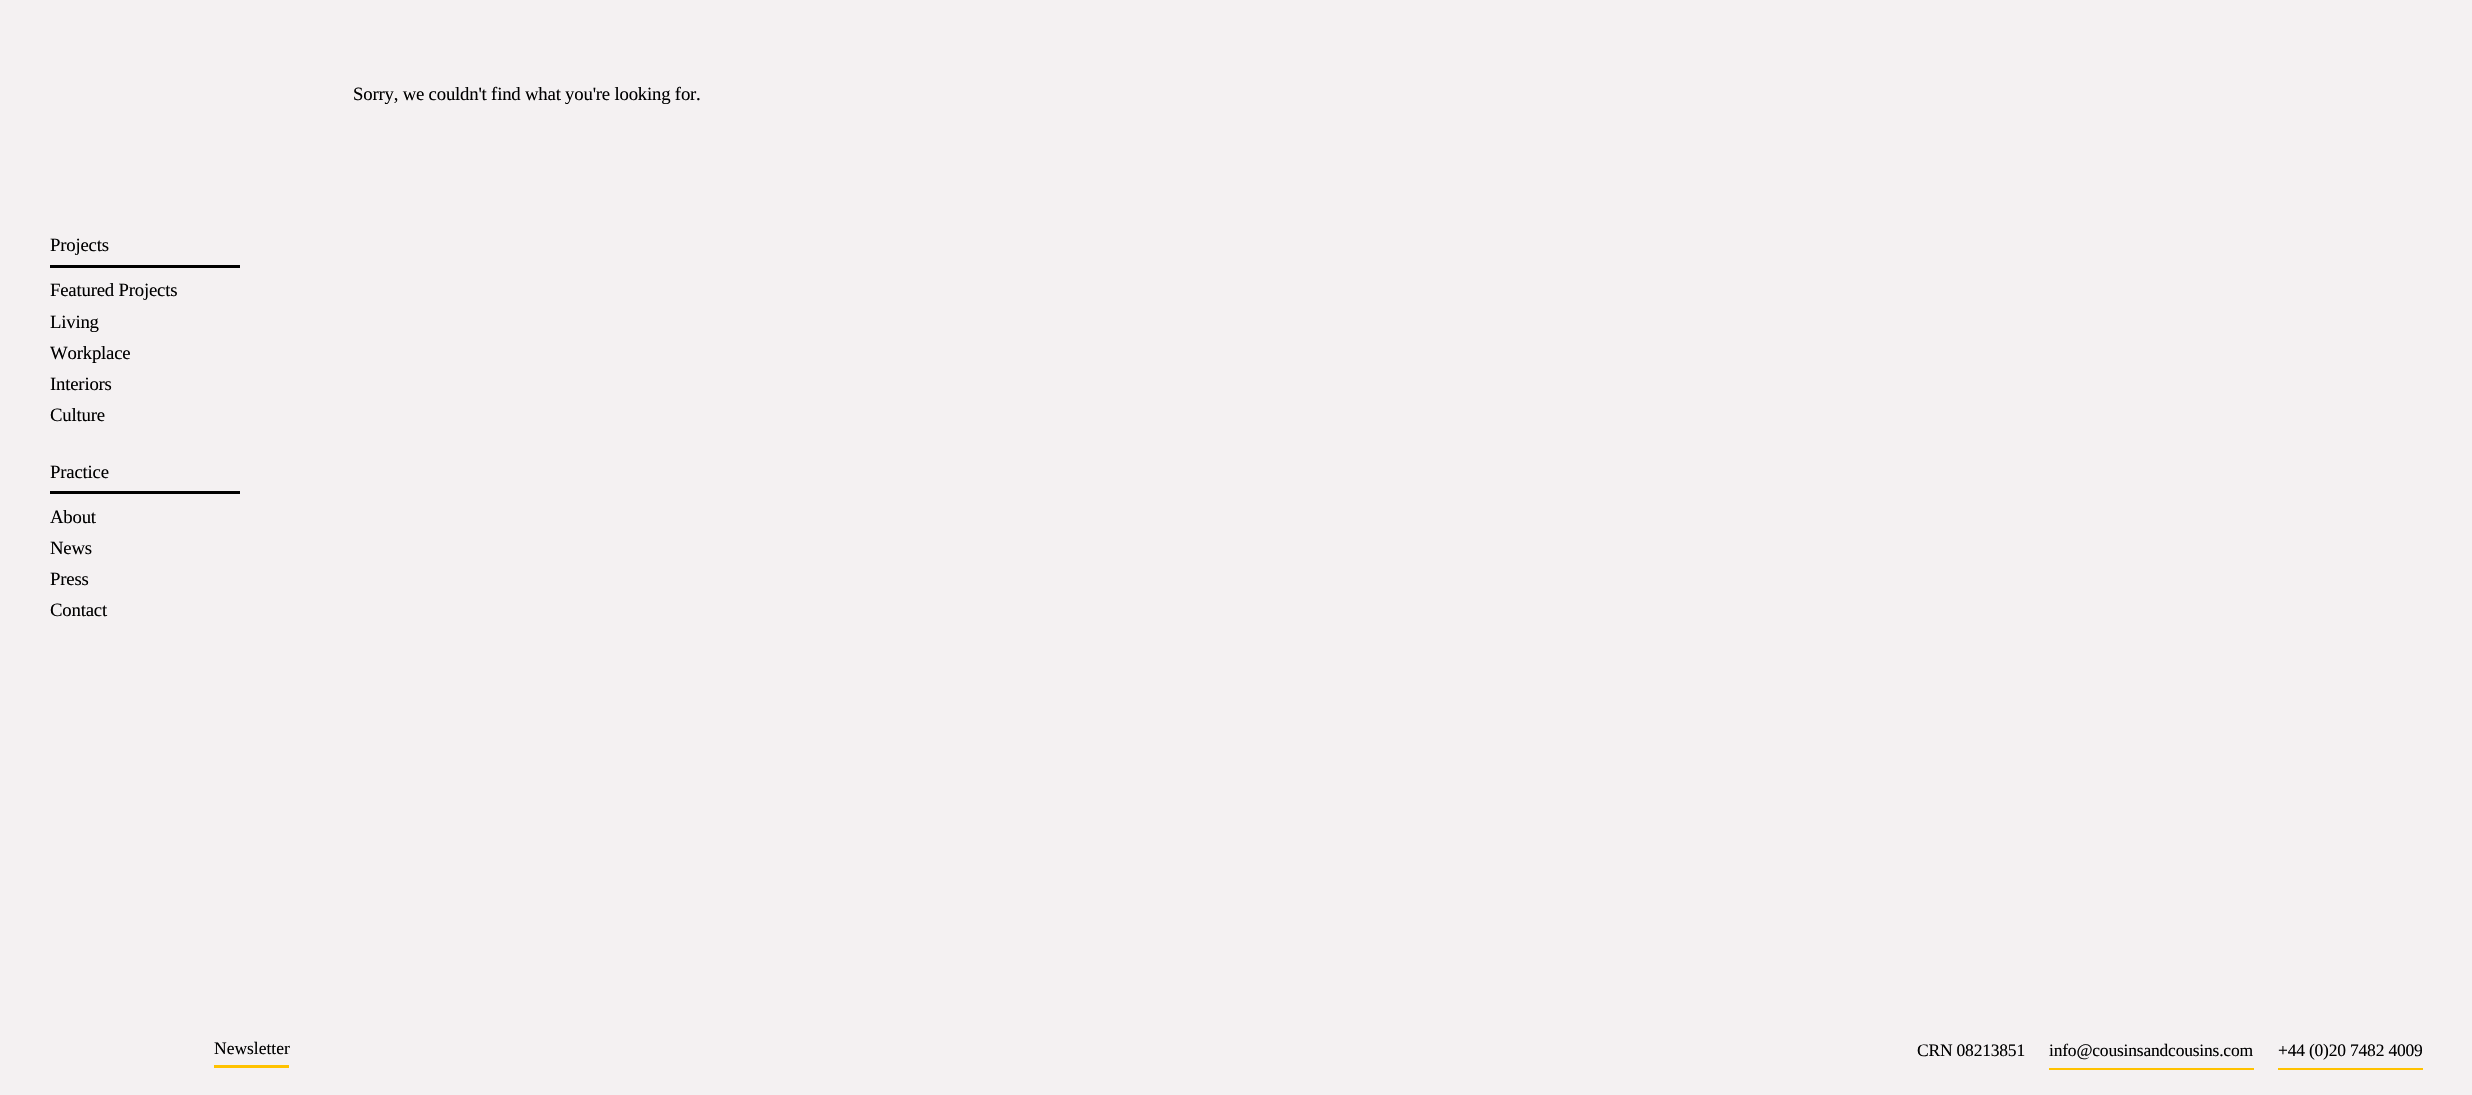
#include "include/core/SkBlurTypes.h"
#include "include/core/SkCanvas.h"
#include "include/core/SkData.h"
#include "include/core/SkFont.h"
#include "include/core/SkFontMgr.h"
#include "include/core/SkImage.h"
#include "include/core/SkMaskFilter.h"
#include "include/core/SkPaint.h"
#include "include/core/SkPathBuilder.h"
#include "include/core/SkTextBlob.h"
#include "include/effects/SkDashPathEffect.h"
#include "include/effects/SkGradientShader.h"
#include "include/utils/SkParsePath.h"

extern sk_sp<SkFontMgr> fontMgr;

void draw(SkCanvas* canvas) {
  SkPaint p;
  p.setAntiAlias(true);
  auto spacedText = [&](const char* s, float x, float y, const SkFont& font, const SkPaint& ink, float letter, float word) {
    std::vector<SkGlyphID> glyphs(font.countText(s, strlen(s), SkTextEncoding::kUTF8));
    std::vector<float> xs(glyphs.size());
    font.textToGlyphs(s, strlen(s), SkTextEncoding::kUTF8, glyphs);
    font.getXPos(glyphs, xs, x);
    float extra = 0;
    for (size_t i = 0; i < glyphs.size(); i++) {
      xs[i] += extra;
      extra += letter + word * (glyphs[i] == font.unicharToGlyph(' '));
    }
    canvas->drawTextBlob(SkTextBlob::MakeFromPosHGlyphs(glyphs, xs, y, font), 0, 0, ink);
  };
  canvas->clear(SkColorSetRGB(244, 241, 242));
  p.setColor(SK_ColorBLACK);
  canvas->drawRect(SkRect::MakeLTRB(50, 265, 240, 268), p);
  canvas->drawRect(SkRect::MakeLTRB(50, 491, 240, 494), p);
  p.setColor(SkColorSetRGB(255, 194, 0));
  canvas->drawRect(SkRect::MakeLTRB(214, 1065, 289, 1068), p);
  canvas->drawRect(SkRect::MakeLTRB(2049, 1068, 2254, 1070), p);
  canvas->drawRect(SkRect::MakeLTRB(2278, 1068, 2423, 1070), p);
  SkFont font1(fontMgr->matchFamilyStyle("Liberation Serif", SkFontStyle::Normal()), 18.75f);
  font1.setSubpixel(true);
  p.setColor(SK_ColorBLACK);
  spacedText("Sorry, we couldn't find what you're looking for.", 353, 100, font1, p, -0.2f, 0);
  spacedText("Projects", 50, 251, font1, p, -0.2f, 0);
  spacedText("Featured Projects", 50, 296, font1, p, -0.2f, 0);
  spacedText("Living", 50, 328, font1, p, -0.2f, 0);
  spacedText("Workplace", 50, 359, font1, p, -0.2f, 0);
  spacedText("Interiors", 50, 390, font1, p, -0.2f, 0);
  spacedText("Culture", 50, 421, font1, p, -0.2f, 0);
  spacedText("Practice", 50, 478, font1, p, -0.2f, 0);
  spacedText("About", 50, 523, font1, p, -0.2f, 0);
  spacedText("News", 50, 554, font1, p, -0.2f, 0);
  spacedText("Press", 50, 585, font1, p, -0.2f, 0);
  spacedText("Contact", 50, 616, font1, p, -0.2f, 0);
  SkFont font2(fontMgr->matchFamilyStyle("Liberation Serif", SkFontStyle::Normal()), 17.5f);
  font2.setSubpixel(true);
  canvas->drawString("Newsletter", 214, 1054, font2, p);
  spacedText("CRN 08213851", 1917, 1056, font2, p, -0.2f, 0);
  spacedText("info@cousinsandcousins.com", 2049, 1056, font2, p, -0.2f, 0);
  spacedText("+44 (0)20 7482 4009", 2278, 1056, font2, p, -0.2f, 0);
}
